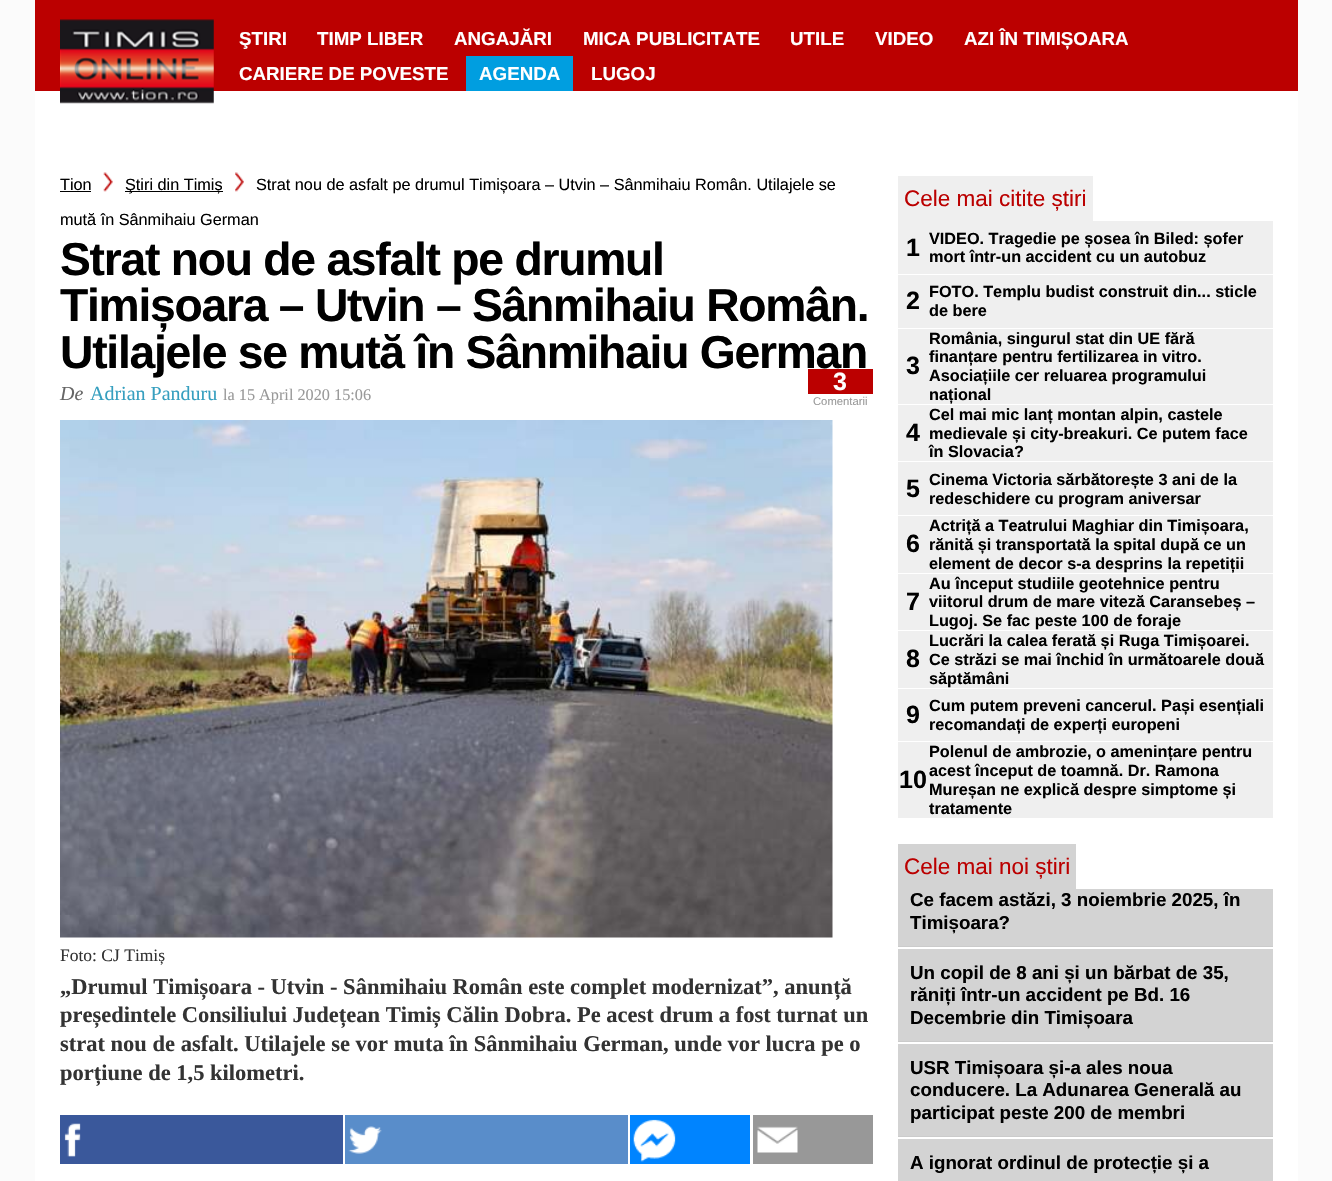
#include "include/core/SkBlurTypes.h"
#include "include/core/SkCanvas.h"
#include "include/core/SkData.h"
#include "include/core/SkFont.h"
#include "include/core/SkFontMgr.h"
#include "include/core/SkImage.h"
#include "include/core/SkMaskFilter.h"
#include "include/core/SkPaint.h"
#include "include/core/SkPathBuilder.h"
#include "include/core/SkTextBlob.h"
#include "include/effects/SkDashPathEffect.h"
#include "include/effects/SkGradientShader.h"
#include "include/utils/SkParsePath.h"

extern sk_sp<SkFontMgr> fontMgr;

void draw(SkCanvas* canvas) {
  SkPaint p;
  p.setAntiAlias(true);
  auto spacedText = [&](const char* s, float x, float y, const SkFont& font, const SkPaint& ink, float letter, float word) {
    std::vector<SkGlyphID> glyphs(font.countText(s, strlen(s), SkTextEncoding::kUTF8));
    std::vector<float> xs(glyphs.size());
    font.textToGlyphs(s, strlen(s), SkTextEncoding::kUTF8, glyphs);
    font.getXPos(glyphs, xs, x);
    float extra = 0;
    for (size_t i = 0; i < glyphs.size(); i++) {
      xs[i] += extra;
      extra += letter + word * (glyphs[i] == font.unicharToGlyph(' '));
    }
    canvas->drawTextBlob(SkTextBlob::MakeFromPosHGlyphs(glyphs, xs, y, font), 0, 0, ink);
  };
  canvas->clear(SkColorSetRGB(251, 251, 251));
  p.setColor(SK_ColorWHITE);
  canvas->drawRect(SkRect::MakeLTRB(35, 91, 1298, 1181), p);
  p.setColor(SkColorSetRGB(187, 0, 0));
  canvas->drawRect(SkRect::MakeLTRB(35, 0, 1298, 91), p);
  canvas->drawImageRect(SkImages::DeferredFromEncodedData(SkData::MakeFromFileName("images/1.png")), SkRect::MakeLTRB(60, 19, 214, 104), SkSamplingOptions());
  p.setColor(SkColorSetRGB(0, 158, 224));
  canvas->drawRect(SkRect::MakeLTRB(466, 56, 573, 91), p);
  p.setColor(SK_ColorBLACK);
  canvas->drawRect(SkRect::MakeLTRB(60, 191, 91, 192), p);
  canvas->drawImageRect(SkImages::DeferredFromEncodedData(SkData::MakeFromFileName("images/2.png")), SkRect::MakeLTRB(103, 172, 113, 192), SkSamplingOptions());
  canvas->drawRect(SkRect::MakeLTRB(125, 191, 223, 192), p);
  canvas->drawImageRect(SkImages::DeferredFromEncodedData(SkData::MakeFromFileName("images/3.png")), SkRect::MakeLTRB(235, 172, 244, 192), SkSamplingOptions());
  canvas->drawImageRect(SkImages::DeferredFromEncodedData(SkData::MakeFromFileName("images/4.png")), SkRect::MakeLTRB(60, 420, 833, 938), SkSamplingOptions());
  p.setColor(SkColorSetRGB(58, 88, 155));
  canvas->drawRect(SkRect::MakeLTRB(60, 1115, 343, 1164), p);
  canvas->drawImageRect(SkImages::DeferredFromEncodedData(SkData::MakeFromFileName("images/5.png")), SkRect::MakeLTRB(64, 1123, 81, 1157), SkSamplingOptions());
  p.setColor(SkColorSetRGB(89, 141, 202));
  canvas->drawRect(SkRect::MakeLTRB(345, 1115, 628, 1164), p);
  canvas->drawImageRect(SkImages::DeferredFromEncodedData(SkData::MakeFromFileName("images/6.png")), SkRect::MakeLTRB(348, 1126, 382, 1154), SkSamplingOptions());
  p.setColor(SkColorSetRGB(0, 132, 255));
  canvas->drawRect(SkRect::MakeLTRB(630, 1115, 750, 1164), p);
  canvas->drawImageRect(SkImages::DeferredFromEncodedData(SkData::MakeFromFileName("images/7.png")), SkRect::MakeLTRB(633, 1119, 676, 1162), SkSamplingOptions());
  p.setColor(SkColorSetRGB(152, 152, 152));
  canvas->drawRect(SkRect::MakeLTRB(753, 1115, 873, 1164), p);
  canvas->drawImageRect(SkImages::DeferredFromEncodedData(SkData::MakeFromFileName("images/8.png")), SkRect::MakeLTRB(757, 1126, 798, 1153), SkSamplingOptions());
  p.setColor(SkColorSetRGB(239, 239, 239));
  canvas->drawRect(SkRect::MakeLTRB(898, 221, 1273, 818), p);
  canvas->drawRect(SkRect::MakeLTRB(898, 176, 1093, 221), p);
  p.setColor(SK_ColorWHITE);
  canvas->drawRect(SkRect::MakeLTRB(898, 274, 1273, 275), p);
  canvas->drawRect(SkRect::MakeLTRB(898, 328, 1273, 329), p);
  canvas->drawRect(SkRect::MakeLTRB(898, 404, 1273, 405), p);
  canvas->drawRect(SkRect::MakeLTRB(898, 461, 1273, 462), p);
  canvas->drawRect(SkRect::MakeLTRB(898, 515, 1273, 516), p);
  canvas->drawRect(SkRect::MakeLTRB(898, 573, 1273, 574), p);
  canvas->drawRect(SkRect::MakeLTRB(898, 630, 1273, 631), p);
  canvas->drawRect(SkRect::MakeLTRB(898, 688, 1273, 689), p);
  canvas->drawRect(SkRect::MakeLTRB(898, 741, 1273, 742), p);
  p.setColor(SkColorSetRGB(211, 211, 211));
  canvas->drawRect(SkRect::MakeLTRB(898, 844, 1076, 889), p);
  p.setColor(SkColorSetRGB(203, 203, 203));
  canvas->drawRect(SkRect::MakeLTRB(898, 946, 1273, 947), p);
  p.setColor(SkColorSetRGB(211, 211, 211));
  canvas->drawRect(SkRect::MakeLTRB(898, 889, 1273, 946), p);
  p.setColor(SkColorSetRGB(203, 203, 203));
  canvas->drawRect(SkRect::MakeLTRB(898, 1041, 1273, 1042), p);
  p.setColor(SkColorSetRGB(211, 211, 211));
  canvas->drawRect(SkRect::MakeLTRB(898, 949, 1273, 1041), p);
  p.setColor(SkColorSetRGB(203, 203, 203));
  canvas->drawRect(SkRect::MakeLTRB(898, 1136, 1273, 1137), p);
  p.setColor(SkColorSetRGB(211, 211, 211));
  canvas->drawRect(SkRect::MakeLTRB(898, 1044, 1273, 1136), p);
  canvas->drawRect(SkRect::MakeLTRB(898, 1139, 1273, 1181), p);
  SkFont font1(fontMgr->matchFamilyStyle("Liberation Sans", SkFontStyle::Bold()), 18.75f);
  font1.setSubpixel(true);
  p.setColor(SK_ColorWHITE);
  canvas->drawString("ŞTIRI", 239, 45, font1, p);
  canvas->drawString("TIMP LIBER", 317, 45, font1, p);
  canvas->drawString("ANGAJĂRI", 454, 45, font1, p);
  canvas->drawString("MICA PUBLICITATE", 583, 45, font1, p);
  canvas->drawString("UTILE", 790, 45, font1, p);
  canvas->drawString("VIDEO", 875, 45, font1, p);
  canvas->drawString("AZI ÎN TIMIȘOARA", 964, 45, font1, p);
  canvas->drawString("CARIERE DE POVESTE", 239, 80, font1, p);
  canvas->drawString("AGENDA", 479, 80, font1, p);
  canvas->drawString("LUGOJ", 591, 80, font1, p);
  SkFont font2(fontMgr->matchFamilyStyle("Liberation Sans", SkFontStyle::Normal()), 16.25f);
  font2.setSubpixel(true);
  p.setColor(SK_ColorBLACK);
  canvas->drawString("Tion", 60, 190, font2, p);
  canvas->drawString("Ştiri din Timiș", 125, 190, font2, p);
  canvas->drawString("Strat nou de asfalt pe drumul Timișoara – Utvin – Sânmihaiu Român. Utilajele se", 256, 190, font2, p);
  canvas->drawString("mută în Sânmihaiu German", 60, 225, font2, p);
  SkFont font3(fontMgr->matchFamilyStyle("Liberation Sans", SkFontStyle::Bold()), 46.25f);
  font3.setSubpixel(true);
  spacedText("Strat nou de asfalt pe drumul", 60, 275, font3, p, -1.25f, 0);
  spacedText("Timișoara – Utvin – Sânmihaiu Român.", 60, 321, font3, p, -1.25f, 0);
  spacedText("Utilajele se mută în Sânmihaiu German", 60, 368, font3, p, -1.25f, 0);
  SkFont font4(fontMgr->matchFamilyStyle("Liberation Serif", SkFontStyle::Italic()), 20);
  font4.setSubpixel(true);
  p.setColor(SkColorSetRGB(102, 102, 102));
  canvas->drawString("De", 60, 400, font4, p);
  SkFont font5(fontMgr->matchFamilyStyle("Liberation Serif", SkFontStyle::Normal()), 20);
  font5.setSubpixel(true);
  p.setColor(SkColorSetRGB(54, 159, 191));
  canvas->drawString("Adrian Panduru", 90, 400, font5, p);
  SkFont font6(fontMgr->matchFamilyStyle("Liberation Serif", SkFontStyle::Normal()), 16.25f);
  font6.setSubpixel(true);
  p.setColor(SkColorSetRGB(153, 153, 153));
  canvas->drawString("la 15 April 2020 15:06", 223, 400, font6, p);
  p.setColor(SkColorSetRGB(187, 0, 0));
  canvas->drawRect(SkRect::MakeLTRB(808, 369, 873, 394), p);
  SkFont font7(fontMgr->matchFamilyStyle("Liberation Sans", SkFontStyle::Bold()), 25);
  font7.setSubpixel(true);
  p.setColor(SK_ColorWHITE);
  canvas->drawString("3", 833, 390, font7, p);
  SkFont font8(fontMgr->matchFamilyStyle("Liberation Sans", SkFontStyle::Normal()), 11.25f);
  font8.setSubpixel(true);
  p.setColor(SkColorSetRGB(153, 153, 153));
  canvas->drawString("Comentarii", 813, 405, font8, p);
  SkFont font9(fontMgr->matchFamilyStyle("Liberation Serif", SkFontStyle::Normal()), 17.5f);
  font9.setSubpixel(true);
  p.setColor(SkColorSetRGB(51, 51, 51));
  canvas->drawString("Foto: CJ Timiș", 60, 961, font9, p);
  SkFont font10(fontMgr->matchFamilyStyle("Liberation Serif", SkFontStyle::Bold()), 22.5f);
  font10.setSubpixel(true);
  canvas->drawString("„Drumul Timișoara - Utvin - Sânmihaiu Român este complet modernizat”, anunță", 60, 994, font10, p);
  canvas->drawString("președintele Consiliului Județean Timiș Călin Dobra. Pe acest drum a fost turnat un", 60, 1022, font10, p);
  canvas->drawString("strat nou de asfalt. Utilajele se vor muta în Sânmihaiu German, unde vor lucra pe o", 60, 1051, font10, p);
  canvas->drawString("porțiune de 1,5 kilometri.", 60, 1080, font10, p);
  SkFont font11(fontMgr->matchFamilyStyle("Liberation Sans", SkFontStyle::Normal()), 22.5f);
  font11.setSubpixel(true);
  p.setColor(SkColorSetRGB(187, 0, 0));
  canvas->drawString("Cele mai citite știri", 904, 206, font11, p);
  p.setColor(SK_ColorBLACK);
  canvas->drawString("1", 906, 256, font7, p);
  SkFont font12(fontMgr->matchFamilyStyle("Liberation Sans", SkFontStyle::Bold()), 16.25f);
  font12.setSubpixel(true);
  canvas->drawString("VIDEO. Tragedie pe șosea în Biled: șofer", 929, 244, font12, p);
  canvas->drawString("mort într-un accident cu un autobuz", 929, 262, font12, p);
  canvas->drawString("2", 906, 309, font7, p);
  canvas->drawString("FOTO. Templu budist construit din... sticle", 929, 297, font12, p);
  canvas->drawString("de bere", 929, 316, font12, p);
  canvas->drawString("3", 906, 374, font7, p);
  canvas->drawString("România, singurul stat din UE fără", 929, 344, font12, p);
  canvas->drawString("finanțare pentru fertilizarea in vitro.", 929, 362, font12, p);
  canvas->drawString("Asociațiile cer reluarea programului", 929, 381, font12, p);
  canvas->drawString("național", 929, 400, font12, p);
  canvas->drawString("4", 906, 441, font7, p);
  canvas->drawString("Cel mai mic lanț montan alpin, castele", 929, 420, font12, p);
  canvas->drawString("medievale și city-breakuri. Ce putem face", 929, 439, font12, p);
  canvas->drawString("în Slovacia?", 929, 457, font12, p);
  canvas->drawString("5", 906, 497, font7, p);
  canvas->drawString("Cinema Victoria sărbătorește 3 ani de la", 929, 485, font12, p);
  canvas->drawString("redeschidere cu program aniversar", 929, 504, font12, p);
  canvas->drawString("6", 906, 552, font7, p);
  canvas->drawString("Actriță a Teatrului Maghiar din Timișoara,", 929, 531, font12, p);
  canvas->drawString("rănită și transportată la spital după ce un", 929, 550, font12, p);
  canvas->drawString("element de decor s-a desprins la repetiții", 929, 569, font12, p);
  canvas->drawString("7", 906, 610, font7, p);
  canvas->drawString("Au început studiile geotehnice pentru", 929, 589, font12, p);
  canvas->drawString("viitorul drum de mare viteză Caransebeș –", 929, 607, font12, p);
  canvas->drawString("Lugoj. Se fac peste 100 de foraje", 929, 626, font12, p);
  canvas->drawString("8", 906, 667, font7, p);
  canvas->drawString("Lucrări la calea ferată și Ruga Timișoarei.", 929, 646, font12, p);
  canvas->drawString("Ce străzi se mai închid în următoarele două", 929, 665, font12, p);
  canvas->drawString("săptămâni", 929, 684, font12, p);
  canvas->drawString("9", 906, 723, font7, p);
  canvas->drawString("Cum putem preveni cancerul. Pași esențiali", 929, 711, font12, p);
  canvas->drawString("recomandați de experți europeni", 929, 730, font12, p);
  canvas->drawString("10", 899, 788, font7, p);
  canvas->drawString("Polenul de ambrozie, o amenințare pentru", 929, 757, font12, p);
  canvas->drawString("acest început de toamnă. Dr. Ramona", 929, 776, font12, p);
  canvas->drawString("Mureșan ne explică despre simptome și", 929, 795, font12, p);
  canvas->drawString("tratamente", 929, 814, font12, p);
  p.setColor(SkColorSetRGB(187, 0, 0));
  canvas->drawString("Cele mai noi știri", 904, 874, font11, p);
  p.setColor(SK_ColorBLACK);
  canvas->drawString("Ce facem astăzi, 3 noiembrie 2025, în", 910, 906, font1, p);
  canvas->drawString("Timișoara?", 910, 929, font1, p);
  canvas->drawString("Un copil de 8 ani și un bărbat de 35,", 910, 979, font1, p);
  canvas->drawString("răniți într-un accident pe Bd. 16", 910, 1001, font1, p);
  canvas->drawString("Decembrie din Timișoara", 910, 1024, font1, p);
  canvas->drawString("USR Timișoara și-a ales noua", 910, 1074, font1, p);
  canvas->drawString("conducere. La Adunarea Generală au", 910, 1096, font1, p);
  canvas->drawString("participat peste 200 de membri", 910, 1119, font1, p);
  canvas->drawString("A ignorat ordinul de protecție și a", 910, 1169, font1, p);
}
